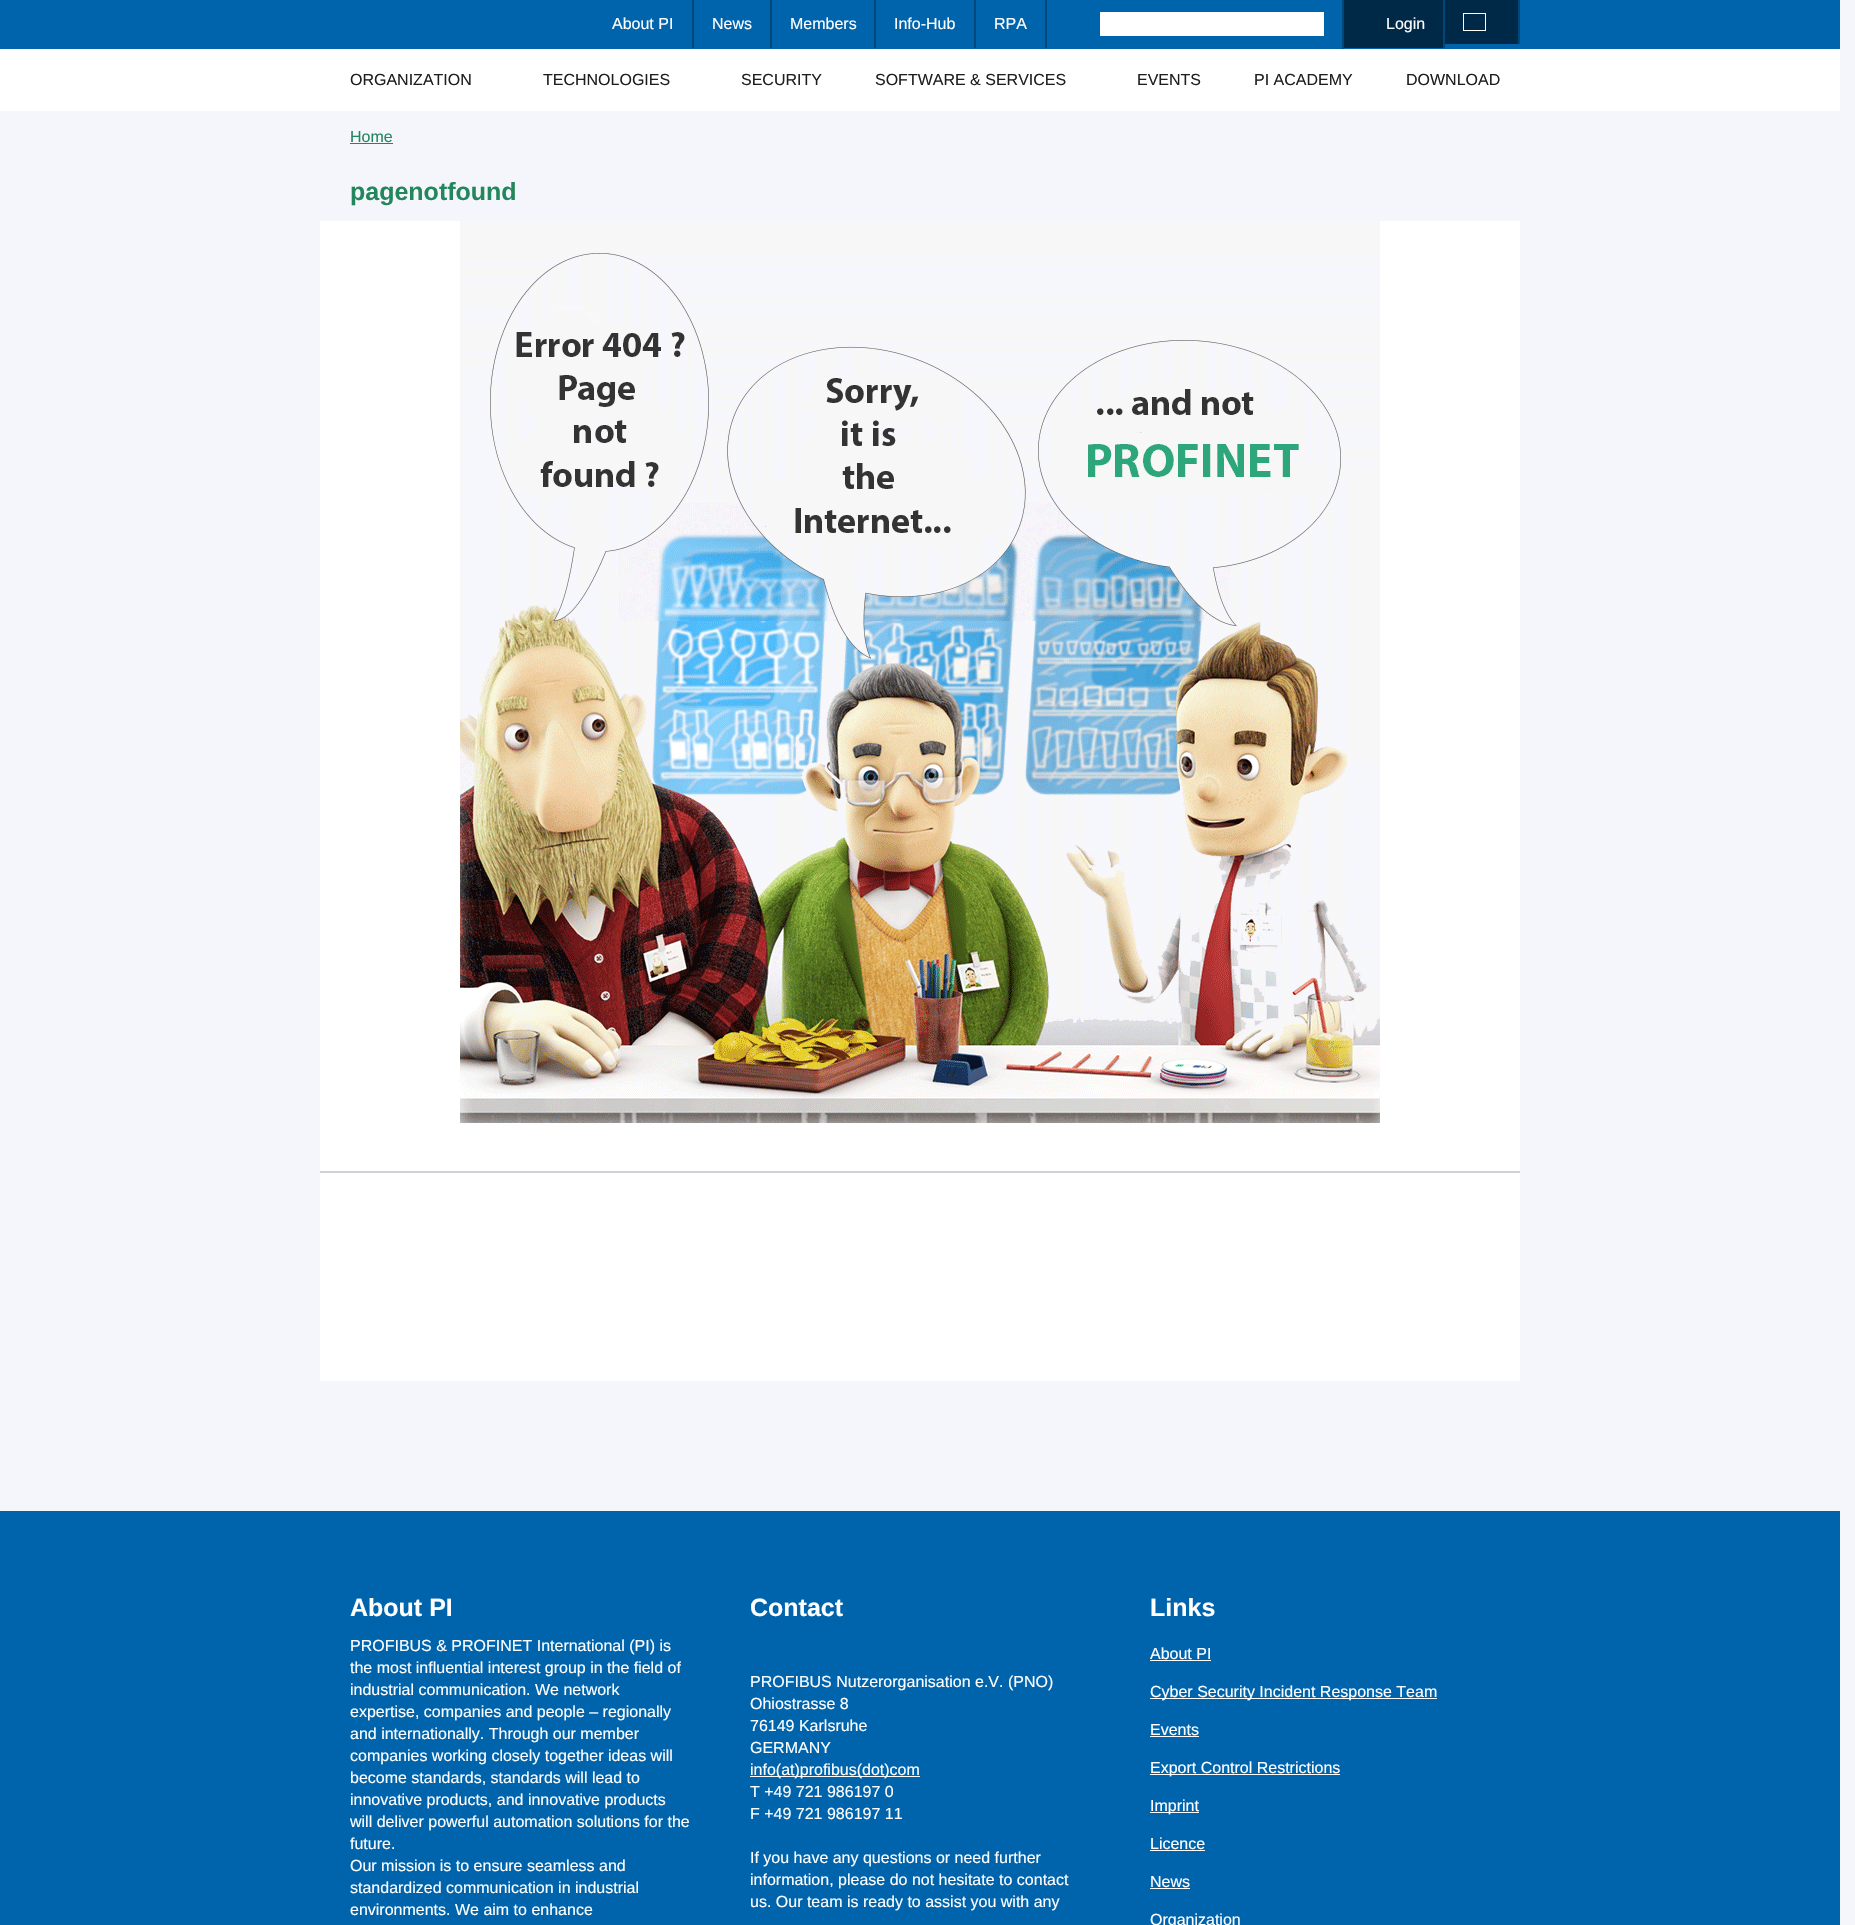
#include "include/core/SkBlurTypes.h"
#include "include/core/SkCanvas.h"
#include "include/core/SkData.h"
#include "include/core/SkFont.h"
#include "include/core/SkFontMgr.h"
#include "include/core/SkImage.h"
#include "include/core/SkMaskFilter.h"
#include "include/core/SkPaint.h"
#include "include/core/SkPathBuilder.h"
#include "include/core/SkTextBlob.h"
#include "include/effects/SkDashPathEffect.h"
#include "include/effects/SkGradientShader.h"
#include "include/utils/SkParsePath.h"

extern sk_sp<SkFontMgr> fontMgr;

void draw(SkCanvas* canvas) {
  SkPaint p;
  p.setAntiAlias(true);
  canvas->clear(SkColorSetRGB(245, 246, 252));
  p.setColor(SkColorSetRGB(0, 100, 173));
  canvas->drawRect(SkRect::MakeLTRB(0, 0, 1840, 49), p);
  p.setColor(SkColorSetRGB(0, 71, 122));
  canvas->drawRect(SkRect::MakeLTRB(692, 0, 694, 48), p);
  canvas->drawRect(SkRect::MakeLTRB(770, 0, 772, 48), p);
  canvas->drawRect(SkRect::MakeLTRB(874, 0, 876, 48), p);
  canvas->drawRect(SkRect::MakeLTRB(974, 0, 976, 48), p);
  canvas->drawRect(SkRect::MakeLTRB(1045, 0, 1047, 48), p);
  canvas->drawRect(SkRect::MakeLTRB(1342, 0, 1344, 49), p);
  p.setColor(SK_ColorWHITE);
  canvas->drawRect(SkRect::MakeLTRB(1100, 12, 1324, 36), p);
  p.setColor(SkColorSetRGB(0, 41, 71));
  canvas->drawRect(SkRect::MakeLTRB(1344, 0, 1443, 48), p);
  p.setColor(SkColorSetRGB(0, 71, 122));
  canvas->drawRect(SkRect::MakeLTRB(1443, 0, 1445, 48), p);
  p.setColor(SkColorSetRGB(0, 41, 71));
  canvas->drawRect(SkRect::MakeLTRB(1445, 0, 1518, 44), p);
  p.setColor(SkColorSetRGB(0, 71, 122));
  canvas->drawRect(SkRect::MakeLTRB(1518, 0, 1520, 44), p);
  p.setStyle(SkPaint::kStroke_Style);
  p.setStrokeWidth(1);
  p.setColor(SK_ColorWHITE);
  canvas->drawRect(SkRect::MakeLTRB(1463.5f, 13.5f, 1485.5f, 30.5f), p);
  p.setStyle(SkPaint::kFill_Style);
  canvas->drawRect(SkRect::MakeLTRB(0, 49, 1840, 111), p);
  p.setColor(SkColorSetRGB(35, 134, 92));
  canvas->drawRect(SkRect::MakeLTRB(350, 143, 393, 144), p);
  p.setColor(SK_ColorWHITE);
  canvas->drawRect(SkRect::MakeLTRB(320, 221, 1520, 1381), p);
  canvas->drawImageRect(SkImages::DeferredFromEncodedData(SkData::MakeFromFileName("images/1.png")), SkRect::MakeLTRB(460, 221, 1380, 1123), SkSamplingOptions());
  p.setColor(SkColorSetRGB(208, 210, 217));
  canvas->drawRect(SkRect::MakeLTRB(320, 1171, 1520, 1173), p);
  p.setColor(SkColorSetRGB(0, 100, 173));
  canvas->drawRect(SkRect::MakeLTRB(0, 1511, 1840, 1925), p);
  p.setColor(SK_ColorWHITE);
  canvas->drawRect(SkRect::MakeLTRB(750, 1776, 920, 1777), p);
  canvas->drawRect(SkRect::MakeLTRB(1150, 1660, 1211, 1661), p);
  canvas->drawRect(SkRect::MakeLTRB(1150, 1698, 1437, 1699), p);
  canvas->drawRect(SkRect::MakeLTRB(1150, 1736, 1199, 1737), p);
  canvas->drawRect(SkRect::MakeLTRB(1150, 1774, 1340, 1775), p);
  canvas->drawRect(SkRect::MakeLTRB(1150, 1812, 1199, 1813), p);
  canvas->drawRect(SkRect::MakeLTRB(1150, 1850, 1205, 1851), p);
  canvas->drawRect(SkRect::MakeLTRB(1150, 1888, 1190, 1889), p);
  SkFont font1(fontMgr->matchFamilyStyle("Liberation Sans", SkFontStyle::Normal()), 16);
  font1.setSubpixel(true);
  canvas->drawString("About PI", 612, 29, font1, p);
  canvas->drawString("News", 712, 29, font1, p);
  canvas->drawString("Members", 790, 29, font1, p);
  canvas->drawString("Info-Hub", 894, 29, font1, p);
  canvas->drawString("RPA", 994, 29, font1, p);
  canvas->drawString("Login", 1386, 29, font1, p);
  p.setColor(SkColorSetRGB(30, 30, 30));
  canvas->drawString("ORGANIZATION", 350, 85, font1, p);
  canvas->drawString("TECHNOLOGIES", 543, 85, font1, p);
  canvas->drawString("SECURITY", 741, 85, font1, p);
  canvas->drawString("SOFTWARE & SERVICES", 875, 85, font1, p);
  canvas->drawString("EVENTS", 1137, 85, font1, p);
  canvas->drawString("PI ACADEMY", 1254, 85, font1, p);
  canvas->drawString("DOWNLOAD", 1406, 85, font1, p);
  p.setColor(SkColorSetRGB(35, 134, 92));
  canvas->drawString("Home", 350, 142, font1, p);
  SkFont font2(fontMgr->matchFamilyStyle("Liberation Sans", SkFontStyle::Bold()), 25);
  font2.setSubpixel(true);
  canvas->drawString("pagenotfound", 350, 200, font2, p);
  p.setColor(SK_ColorWHITE);
  canvas->drawString("About PI", 350, 1616, font2, p);
  canvas->drawString("PROFIBUS & PROFINET International (PI) is", 350, 1651, font1, p);
  canvas->drawString("the most influential interest group in the field of", 350, 1673, font1, p);
  canvas->drawString("industrial communication. We network", 350, 1695, font1, p);
  canvas->drawString("expertise, companies and people – regionally", 350, 1717, font1, p);
  canvas->drawString("and internationally. Through our member", 350, 1739, font1, p);
  canvas->drawString("companies working closely together ideas will", 350, 1761, font1, p);
  canvas->drawString("become standards, standards will lead to", 350, 1783, font1, p);
  canvas->drawString("innovative products, and innovative products", 350, 1805, font1, p);
  canvas->drawString("will deliver powerful automation solutions for the", 350, 1827, font1, p);
  canvas->drawString("future.", 350, 1849, font1, p);
  canvas->drawString("Our mission is to ensure seamless and", 350, 1871, font1, p);
  canvas->drawString("standardized communication in industrial", 350, 1893, font1, p);
  canvas->drawString("environments. We aim to enhance", 350, 1915, font1, p);
  canvas->drawString("Contact", 750, 1616, font2, p);
  canvas->drawString("PROFIBUS Nutzerorganisation e.V. (PNO)", 750, 1687, font1, p);
  canvas->drawString("Ohiostrasse 8", 750, 1709, font1, p);
  canvas->drawString("76149 Karlsruhe", 750, 1731, font1, p);
  canvas->drawString("GERMANY", 750, 1753, font1, p);
  canvas->drawString("info(at)profibus(dot)com", 750, 1775, font1, p);
  canvas->drawString("T +49 721 986197 0", 750, 1797, font1, p);
  canvas->drawString("F +49 721 986197 11", 750, 1819, font1, p);
  canvas->drawString("If you have any questions or need further", 750, 1863, font1, p);
  canvas->drawString("information, please do not hesitate to contact", 750, 1885, font1, p);
  canvas->drawString("us. Our team is ready to assist you with any", 750, 1907, font1, p);
  canvas->drawString("Links", 1150, 1616, font2, p);
  canvas->drawString("About PI", 1150, 1659, font1, p);
  canvas->drawString("Cyber Security Incident Response Team", 1150, 1697, font1, p);
  canvas->drawString("Events", 1150, 1735, font1, p);
  canvas->drawString("Export Control Restrictions", 1150, 1773, font1, p);
  canvas->drawString("Imprint", 1150, 1811, font1, p);
  canvas->drawString("Licence", 1150, 1849, font1, p);
  canvas->drawString("News", 1150, 1887, font1, p);
  canvas->drawString("Organization", 1150, 1925, font1, p);
}
